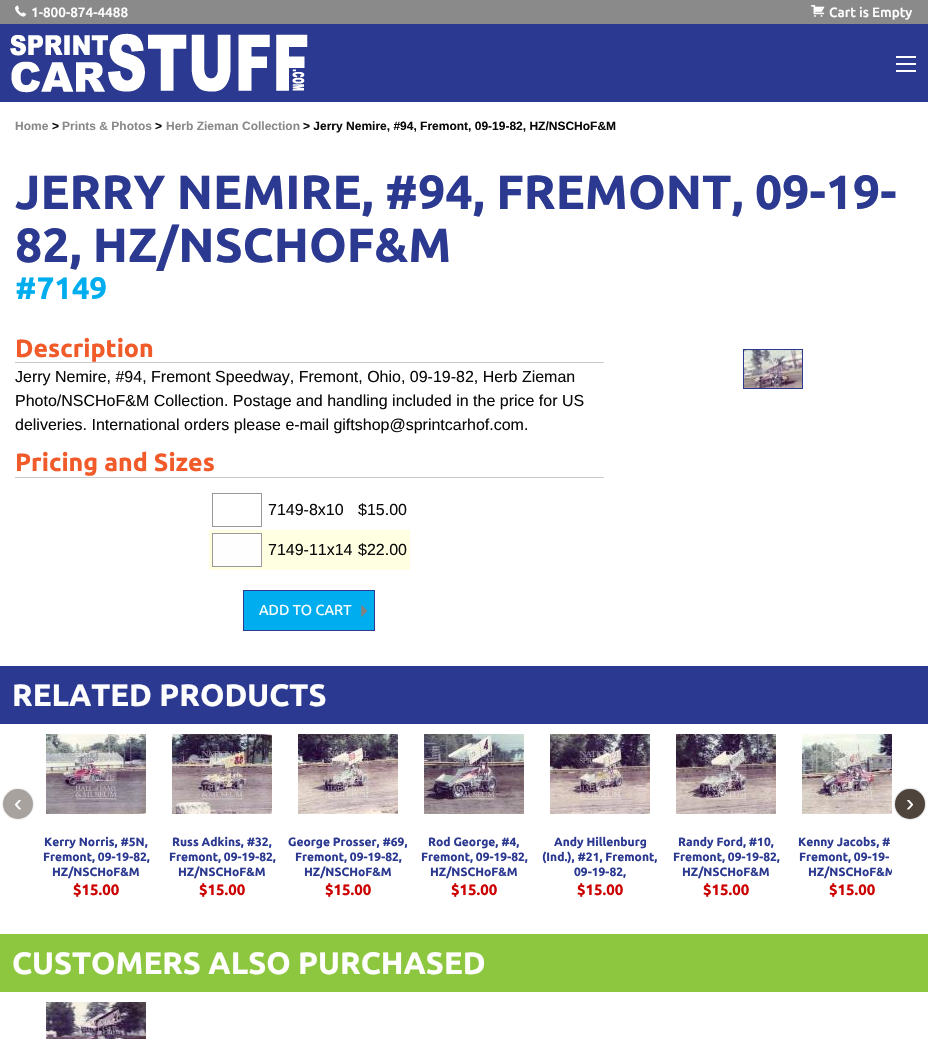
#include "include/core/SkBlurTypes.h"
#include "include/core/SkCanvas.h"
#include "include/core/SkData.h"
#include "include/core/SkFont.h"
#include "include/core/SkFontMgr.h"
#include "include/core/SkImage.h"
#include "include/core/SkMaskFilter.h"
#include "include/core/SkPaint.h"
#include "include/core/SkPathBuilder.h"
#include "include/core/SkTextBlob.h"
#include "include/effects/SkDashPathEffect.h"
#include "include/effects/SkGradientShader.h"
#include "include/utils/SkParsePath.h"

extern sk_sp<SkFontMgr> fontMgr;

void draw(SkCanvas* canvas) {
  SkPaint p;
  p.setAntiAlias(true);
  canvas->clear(SK_ColorWHITE);
  p.setColor(SkColorSetRGB(138, 138, 138));
  canvas->drawRect(SkRect::MakeLTRB(0, 0, 928, 24), p);
  canvas->drawImageRect(SkImages::DeferredFromEncodedData(SkData::MakeFromFileName("images/1.png")), SkRect::MakeLTRB(15, 5, 27, 17), SkSamplingOptions());
  canvas->drawImageRect(SkImages::DeferredFromEncodedData(SkData::MakeFromFileName("images/2.png")), SkRect::MakeLTRB(811, 5, 825, 17), SkSamplingOptions());
  p.setColor(SkColorSetRGB(43, 57, 144));
  canvas->drawRect(SkRect::MakeLTRB(0, 24, 928, 102), p);
  canvas->drawImageRect(SkImages::DeferredFromEncodedData(SkData::MakeFromFileName("images/3.png")), SkRect::MakeLTRB(10, 33, 308, 93), SkSamplingOptions());
  p.setColor(SkColorSetRGB(254, 254, 254));
  canvas->drawRect(SkRect::MakeLTRB(896, 70, 916, 72), p);
  canvas->drawRect(SkRect::MakeLTRB(896, 63, 916, 65), p);
  canvas->drawRect(SkRect::MakeLTRB(896, 56, 916, 58), p);
  p.setColor(SkColorSetRGB(202, 202, 202));
  canvas->drawRect(SkRect::MakeLTRB(15, 362, 604, 363), p);
  canvas->drawRect(SkRect::MakeLTRB(15, 477, 604, 478), p);
  p.setStyle(SkPaint::kStroke_Style);
  p.setStrokeWidth(1);
  p.setColor(SkColorSetRGB(153, 153, 153));
  canvas->drawRect(SkRect::MakeLTRB(212.5f, 493.5f, 261.5f, 526.5f), p);
  p.setStyle(SkPaint::kFill_Style);
  p.setColor(SkColorSetRGB(255, 255, 226));
  canvas->drawRect(SkRect::MakeLTRB(209, 530, 410, 570), p);
  p.setColor(SkColorSetRGB(254, 254, 254));
  canvas->drawRect(SkRect::MakeLTRB(212.5f, 533.5f, 261.5f, 566.5f), p);
  p.setStyle(SkPaint::kStroke_Style);
  p.setColor(SkColorSetRGB(153, 153, 153));
  canvas->drawRect(SkRect::MakeLTRB(212.5f, 533.5f, 261.5f, 566.5f), p);
  p.setStyle(SkPaint::kFill_Style);
  p.setColor(SkColorSetRGB(0, 174, 239));
  canvas->drawRect(SkRect::MakeLTRB(244, 591, 374, 630), p);
  canvas->drawImageRect(SkImages::DeferredFromEncodedData(SkData::MakeFromFileName("images/4.png")), SkRect::MakeLTRB(361, 604, 368, 617), SkSamplingOptions());
  p.setStyle(SkPaint::kStroke_Style);
  p.setColor(SkColorSetRGB(43, 57, 144));
  canvas->drawRect(SkRect::MakeLTRB(243.5f, 590.5f, 374.5f, 630.5f), p);
  canvas->drawImageRect(SkImages::DeferredFromEncodedData(SkData::MakeFromFileName("images/5.png")), SkRect::MakeLTRB(744, 350, 802, 388), SkSamplingOptions());
  canvas->drawRect(SkRect::MakeLTRB(743.5f, 349.5f, 802.5f, 388.5f), p);
  p.setStyle(SkPaint::kFill_Style);
  canvas->drawRect(SkRect::MakeLTRB(0, 666, 928, 724), p);
  p.setColor(SkColorSetRGB(204, 204, 204));
  p.setMaskFilter(SkMaskFilter::MakeBlur(kNormal_SkBlurStyle, 1));
  canvas->drawRoundRect(SkRect::MakeLTRB(3, 789, 33, 819), 15, 15, p);
  p.setMaskFilter(nullptr);
  p.setColor(SkColorSetRGB(167, 162, 158));
  canvas->drawCircle(18, 804, 15, p);
  canvas->drawImageRect(SkImages::DeferredFromEncodedData(SkData::MakeFromFileName("images/12.png")), SkRect::MakeLTRB(802, 734, 892, 814), SkSamplingOptions());
  p.setColor(SkColorSetRGB(153, 153, 153));
  p.setMaskFilter(SkMaskFilter::MakeBlur(kNormal_SkBlurStyle, 1));
  canvas->drawRoundRect(SkRect::MakeLTRB(895, 789, 925, 819), 15, 15, p);
  p.setMaskFilter(nullptr);
  p.setColor(SkColorSetRGB(78, 68, 60));
  canvas->drawCircle(910, 804, 15, p);
  canvas->drawImageRect(SkImages::DeferredFromEncodedData(SkData::MakeFromFileName("images/6.png")), SkRect::MakeLTRB(46, 734, 146, 814), SkSamplingOptions());
  canvas->drawImageRect(SkImages::DeferredFromEncodedData(SkData::MakeFromFileName("images/7.png")), SkRect::MakeLTRB(172, 734, 272, 814), SkSamplingOptions());
  canvas->drawImageRect(SkImages::DeferredFromEncodedData(SkData::MakeFromFileName("images/8.png")), SkRect::MakeLTRB(298, 734, 398, 814), SkSamplingOptions());
  canvas->drawImageRect(SkImages::DeferredFromEncodedData(SkData::MakeFromFileName("images/9.png")), SkRect::MakeLTRB(424, 734, 524, 814), SkSamplingOptions());
  canvas->drawImageRect(SkImages::DeferredFromEncodedData(SkData::MakeFromFileName("images/10.png")), SkRect::MakeLTRB(550, 734, 650, 814), SkSamplingOptions());
  canvas->drawImageRect(SkImages::DeferredFromEncodedData(SkData::MakeFromFileName("images/11.png")), SkRect::MakeLTRB(676, 734, 776, 814), SkSamplingOptions());
  p.setColor(SkColorSetRGB(141, 198, 63));
  canvas->drawRect(SkRect::MakeLTRB(0, 934, 928, 992), p);
  canvas->drawImageRect(SkImages::DeferredFromEncodedData(SkData::MakeFromFileName("images/13.png")), SkRect::MakeLTRB(46, 1002, 146, 1039), SkSamplingOptions());
  SkFont font1(fontMgr->matchFamilyStyle("Ubuntu", SkFontStyle(500, SkFontStyle::kNormal_Width, SkFontStyle::kUpright_Slant)), 13.5f);
  font1.setSubpixel(true);
  p.setColor(SkColorSetRGB(254, 254, 254));
  canvas->drawString("1-800-874-4488", 31, 17, font1, p);
  canvas->drawString("Cart is Empty", 829, 17, font1, p);
  SkFont font2(fontMgr->matchFamilyStyle("Liberation Sans", SkFontStyle::Bold()), 12);
  font2.setSubpixel(true);
  p.setColor(SkColorSetRGB(138, 138, 138));
  canvas->drawString("Home", 15, 130, font2, p);
  p.setColor(SkColorSetRGB(10, 10, 10));
  canvas->drawString(">", 52, 130, font2, p);
  p.setColor(SkColorSetRGB(138, 138, 138));
  canvas->drawString("Prints & Photos", 62, 130, font2, p);
  p.setColor(SkColorSetRGB(10, 10, 10));
  canvas->drawString(">", 155, 130, font2, p);
  p.setColor(SkColorSetRGB(138, 138, 138));
  canvas->drawString("Herb Zieman Collection", 166, 130, font2, p);
  p.setColor(SkColorSetRGB(10, 10, 10));
  canvas->drawString("> Jerry Nemire, #94, Fremont, 09-19-82, HZ/NSCHoF&M", 303, 130, font2, p);
  SkFont font3(fontMgr->matchFamilyStyle("Ubuntu", SkFontStyle::Bold()), 48);
  font3.setSubpixel(true);
  p.setColor(SkColorSetRGB(43, 57, 144));
  canvas->drawString("JERRY NEMIRE, #94, FREMONT, 09-19-", 15, 209, font3, p);
  canvas->drawString("82, HZ/NSCHOF&M", 15, 262, font3, p);
  SkFont font4(fontMgr->matchFamilyStyle("Ubuntu", SkFontStyle::Bold()), 31);
  font4.setSubpixel(true);
  p.setColor(SkColorSetRGB(0, 174, 239));
  canvas->drawString("#7149", 15, 299, font4, p);
  SkFont font5(fontMgr->matchFamilyStyle("Ubuntu", SkFontStyle::Bold()), 25);
  font5.setSubpixel(true);
  p.setColor(SkColorSetRGB(241, 90, 41));
  canvas->drawString("Description", 15, 357, font5, p);
  SkFont font6(fontMgr->matchFamilyStyle("Liberation Sans", SkFontStyle::Normal()), 16);
  font6.setSubpixel(true);
  p.setColor(SkColorSetRGB(10, 10, 10));
  canvas->drawString("Jerry Nemire, #94, Fremont Speedway, Fremont, Ohio, 09-19-82, Herb Zieman", 15, 382, font6, p);
  canvas->drawString("Photo/NSCHoF&M Collection. Postage and handling included in the price for US", 15, 406, font6, p);
  canvas->drawString("deliveries. International orders please e-mail giftshop@sprintcarhof.com.", 15, 430, font6, p);
  p.setColor(SkColorSetRGB(241, 90, 41));
  canvas->drawString("Pricing and Sizes", 15, 471, font5, p);
  p.setColor(SkColorSetRGB(10, 10, 10));
  canvas->drawString("7149-8x10", 268, 515, font6, p);
  canvas->drawString("$15.00", 358, 515, font6, p);
  canvas->drawString("7149-11x14", 268, 555, font6, p);
  canvas->drawString("$22.00", 358, 555, font6, p);
  SkFont font7(fontMgr->matchFamilyStyle("Ubuntu", SkFontStyle::Normal()), 14.5f);
  font7.setSubpixel(true);
  p.setColor(SkColorSetRGB(254, 254, 254));
  canvas->drawString("ADD TO CART", 259, 615, font7, p);
  canvas->drawString("RELATED PRODUCTS", 12, 706, font4, p);
  SkFont font8(fontMgr->matchFamilyStyle("Liberation Sans", SkFontStyle::Normal()), 24);
  font8.setSubpixel(true);
  canvas->drawString("‹", 14, 811, font8, p);
  canvas->drawString("›", 906, 811, font8, p);
  SkFont font9(fontMgr->matchFamilyStyle("Ubuntu", SkFontStyle::Bold()), 12);
  font9.setSubpixel(true);
  p.setColor(SkColorSetRGB(43, 57, 144));
  canvas->drawString("Kerry Norris, #5N,", 44, 846, font9, p);
  canvas->drawString("Fremont, 09-19-82,", 43, 861, font9, p);
  canvas->drawString("HZ/NSCHoF&M", 52, 876, font9, p);
  SkFont font10(fontMgr->matchFamilyStyle("Ubuntu", SkFontStyle::Bold()), 15);
  font10.setSubpixel(true);
  p.setColor(SkColorSetRGB(204, 0, 0));
  canvas->drawString("$15.00", 73, 895, font10, p);
  p.setColor(SkColorSetRGB(43, 57, 144));
  canvas->drawString("Russ Adkins, #32,", 172, 846, font9, p);
  canvas->drawString("Fremont, 09-19-82,", 169, 861, font9, p);
  canvas->drawString("HZ/NSCHoF&M", 178, 876, font9, p);
  p.setColor(SkColorSetRGB(204, 0, 0));
  canvas->drawString("$15.00", 199, 895, font10, p);
  p.setColor(SkColorSetRGB(43, 57, 144));
  canvas->drawString("George Prosser, #69,", 288, 846, font9, p);
  canvas->drawString("Fremont, 09-19-82,", 295, 861, font9, p);
  canvas->drawString("HZ/NSCHoF&M", 304, 876, font9, p);
  p.setColor(SkColorSetRGB(204, 0, 0));
  canvas->drawString("$15.00", 325, 895, font10, p);
  p.setColor(SkColorSetRGB(43, 57, 144));
  canvas->drawString("Rod George, #4,", 428, 846, font9, p);
  canvas->drawString("Fremont, 09-19-82,", 421, 861, font9, p);
  canvas->drawString("HZ/NSCHoF&M", 430, 876, font9, p);
  p.setColor(SkColorSetRGB(204, 0, 0));
  canvas->drawString("$15.00", 451, 895, font10, p);
  p.setColor(SkColorSetRGB(43, 57, 144));
  canvas->drawString("Andy Hillenburg", 554, 846, font9, p);
  canvas->drawString("(Ind.), #21, Fremont,", 542, 861, font9, p);
  canvas->drawString("09-19-82,", 574, 876, font9, p);
  p.setColor(SkColorSetRGB(204, 0, 0));
  canvas->drawString("$15.00", 577, 895, font10, p);
  p.setColor(SkColorSetRGB(43, 57, 144));
  canvas->drawString("Randy Ford, #10,", 678, 846, font9, p);
  canvas->drawString("Fremont, 09-19-82,", 673, 861, font9, p);
  canvas->drawString("HZ/NSCHoF&M", 682, 876, font9, p);
  p.setColor(SkColorSetRGB(204, 0, 0));
  canvas->drawString("$15.00", 703, 895, font10, p);
  p.setColor(SkColorSetRGB(43, 57, 144));
  canvas->drawString("Kenny Jacobs, #", 798, 846, font9, p);
  canvas->drawString("Fremont, 09-19-", 799, 861, font9, p);
  canvas->save();
  canvas->clipRect(SkRect::MakeLTRB(792, 834, 892, 880));
  canvas->drawString("HZ/NSCHoF&M", 808, 876, font9, p);
  canvas->restore();
  p.setColor(SkColorSetRGB(204, 0, 0));
  canvas->drawString("$15.00", 829, 895, font10, p);
  p.setColor(SkColorSetRGB(254, 254, 254));
  canvas->drawString("CUSTOMERS ALSO PURCHASED", 12, 974, font4, p);
}
